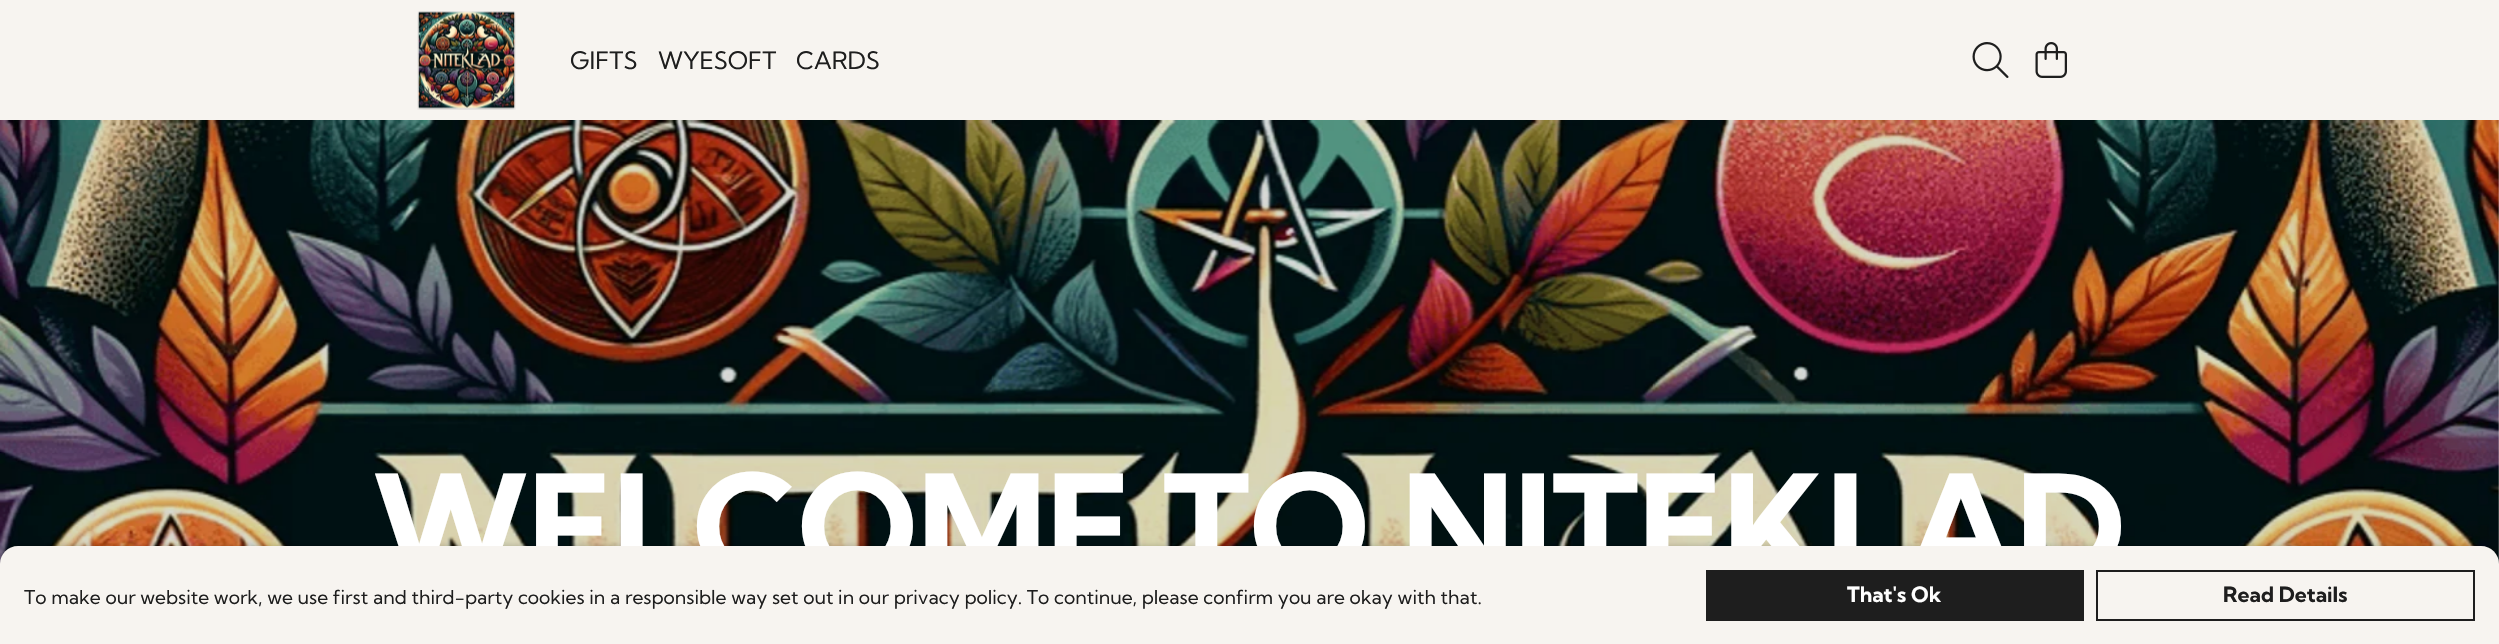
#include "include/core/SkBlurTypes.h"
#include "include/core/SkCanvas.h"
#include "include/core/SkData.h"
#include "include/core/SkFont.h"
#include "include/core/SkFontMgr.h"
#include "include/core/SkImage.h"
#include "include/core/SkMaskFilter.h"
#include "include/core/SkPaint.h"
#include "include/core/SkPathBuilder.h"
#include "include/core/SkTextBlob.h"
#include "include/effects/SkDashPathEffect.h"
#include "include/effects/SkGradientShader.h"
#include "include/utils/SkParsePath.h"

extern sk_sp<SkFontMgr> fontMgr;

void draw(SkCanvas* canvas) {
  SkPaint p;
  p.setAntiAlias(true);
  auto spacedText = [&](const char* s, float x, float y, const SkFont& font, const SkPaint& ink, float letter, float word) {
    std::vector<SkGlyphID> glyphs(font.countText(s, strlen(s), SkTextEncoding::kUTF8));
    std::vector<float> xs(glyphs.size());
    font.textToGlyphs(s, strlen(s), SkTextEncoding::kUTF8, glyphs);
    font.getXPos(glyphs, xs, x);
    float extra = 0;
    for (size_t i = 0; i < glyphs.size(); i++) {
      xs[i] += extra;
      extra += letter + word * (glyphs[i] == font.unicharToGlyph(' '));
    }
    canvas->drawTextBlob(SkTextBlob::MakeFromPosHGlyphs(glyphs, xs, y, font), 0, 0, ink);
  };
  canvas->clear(SkColorSetRGB(247, 244, 240));
  canvas->drawImageRect(SkImages::DeferredFromEncodedData(SkData::MakeFromFileName("images/1.png")), SkRect::MakeLTRB(417, 11, 516, 110), SkSamplingOptions());
  canvas->drawImageRect(SkImages::DeferredFromEncodedData(SkData::MakeFromFileName("images/2.png")), SkRect::MakeLTRB(1972, 42, 2009, 78), SkSamplingOptions());
  canvas->drawImageRect(SkImages::DeferredFromEncodedData(SkData::MakeFromFileName("images/3.png")), SkRect::MakeLTRB(2035, 42, 2067, 78), SkSamplingOptions());
  canvas->drawImageRect(SkImages::DeferredFromEncodedData(SkData::MakeFromFileName("images/4.png")), SkRect::MakeLTRB(0, 120, 2499, 564), SkSamplingOptions());
  p.setColor(SkColorSetARGB(51, 0, 0, 0));
  p.setMaskFilter(SkMaskFilter::MakeBlur(kNormal_SkBlurStyle, 3));
  canvas->drawRoundRect(SkRect::MakeLTRB(0, 546, 2499, 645), 18, 18, p);
  p.setMaskFilter(nullptr);
  SkFont font1(fontMgr->matchFamilyStyle("Kumbh Sans", SkFontStyle::Normal()), 24);
  font1.setSubpixel(true);
  p.setColor(SkColorSetRGB(30, 30, 30));
  canvas->drawString("GIFTS", 570, 69, font1, p);
  canvas->drawString("WYESOFT", 658, 69, font1, p);
  canvas->drawString("CARDS", 796, 69, font1, p);
  SkFont font2(fontMgr->matchFamilyStyle("Kumbh Sans", SkFontStyle::Bold()), 144);
  font2.setSubpixel(true);
  p.setColor(SK_ColorWHITE);
  spacedText("WELCOME TO NITEKLAD", 373, 579, font2, p, -0.6f, 0);
  p.setColor(SkColorSetRGB(247, 244, 240));
  canvas->drawPath(SkPathBuilder().moveTo(18, 546).lineTo(2481, 546).cubicTo(2491, 546, 2499, 554, 2499, 564).lineTo(2499, 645).lineTo(0, 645).lineTo(0, 564).cubicTo(0, 554, 8, 546, 18, 546).close().detach(), p);
  SkFont font3(fontMgr->matchFamilyStyle("Kumbh Sans", SkFontStyle::Normal()), 19.2f);
  font3.setSubpixel(true);
  p.setColor(SkColorSetRGB(30, 30, 30));
  canvas->drawString("To make our website work, we use first and third-party cookies in a responsible way set out in our privacy policy. To continue, please confirm you are okay with that.", 24, 604, font3, p);
  canvas->drawRect(SkRect::MakeLTRB(1706, 570, 2084, 621), p);
  SkFont font4(fontMgr->matchFamilyStyle("Kumbh Sans", SkFontStyle::Bold()), 21);
  font4.setSubpixel(true);
  p.setColor(SK_ColorWHITE);
  canvas->drawString("That's Ok", 1847, 602, font4, p);
  p.setStyle(SkPaint::kStroke_Style);
  p.setStrokeWidth(2);
  p.setColor(SkColorSetRGB(30, 30, 30));
  canvas->drawRect(SkRect::MakeLTRB(2097, 571, 2474, 620), p);
  p.setStyle(SkPaint::kFill_Style);
  canvas->drawString("Read Details", 2223, 602, font4, p);
}
